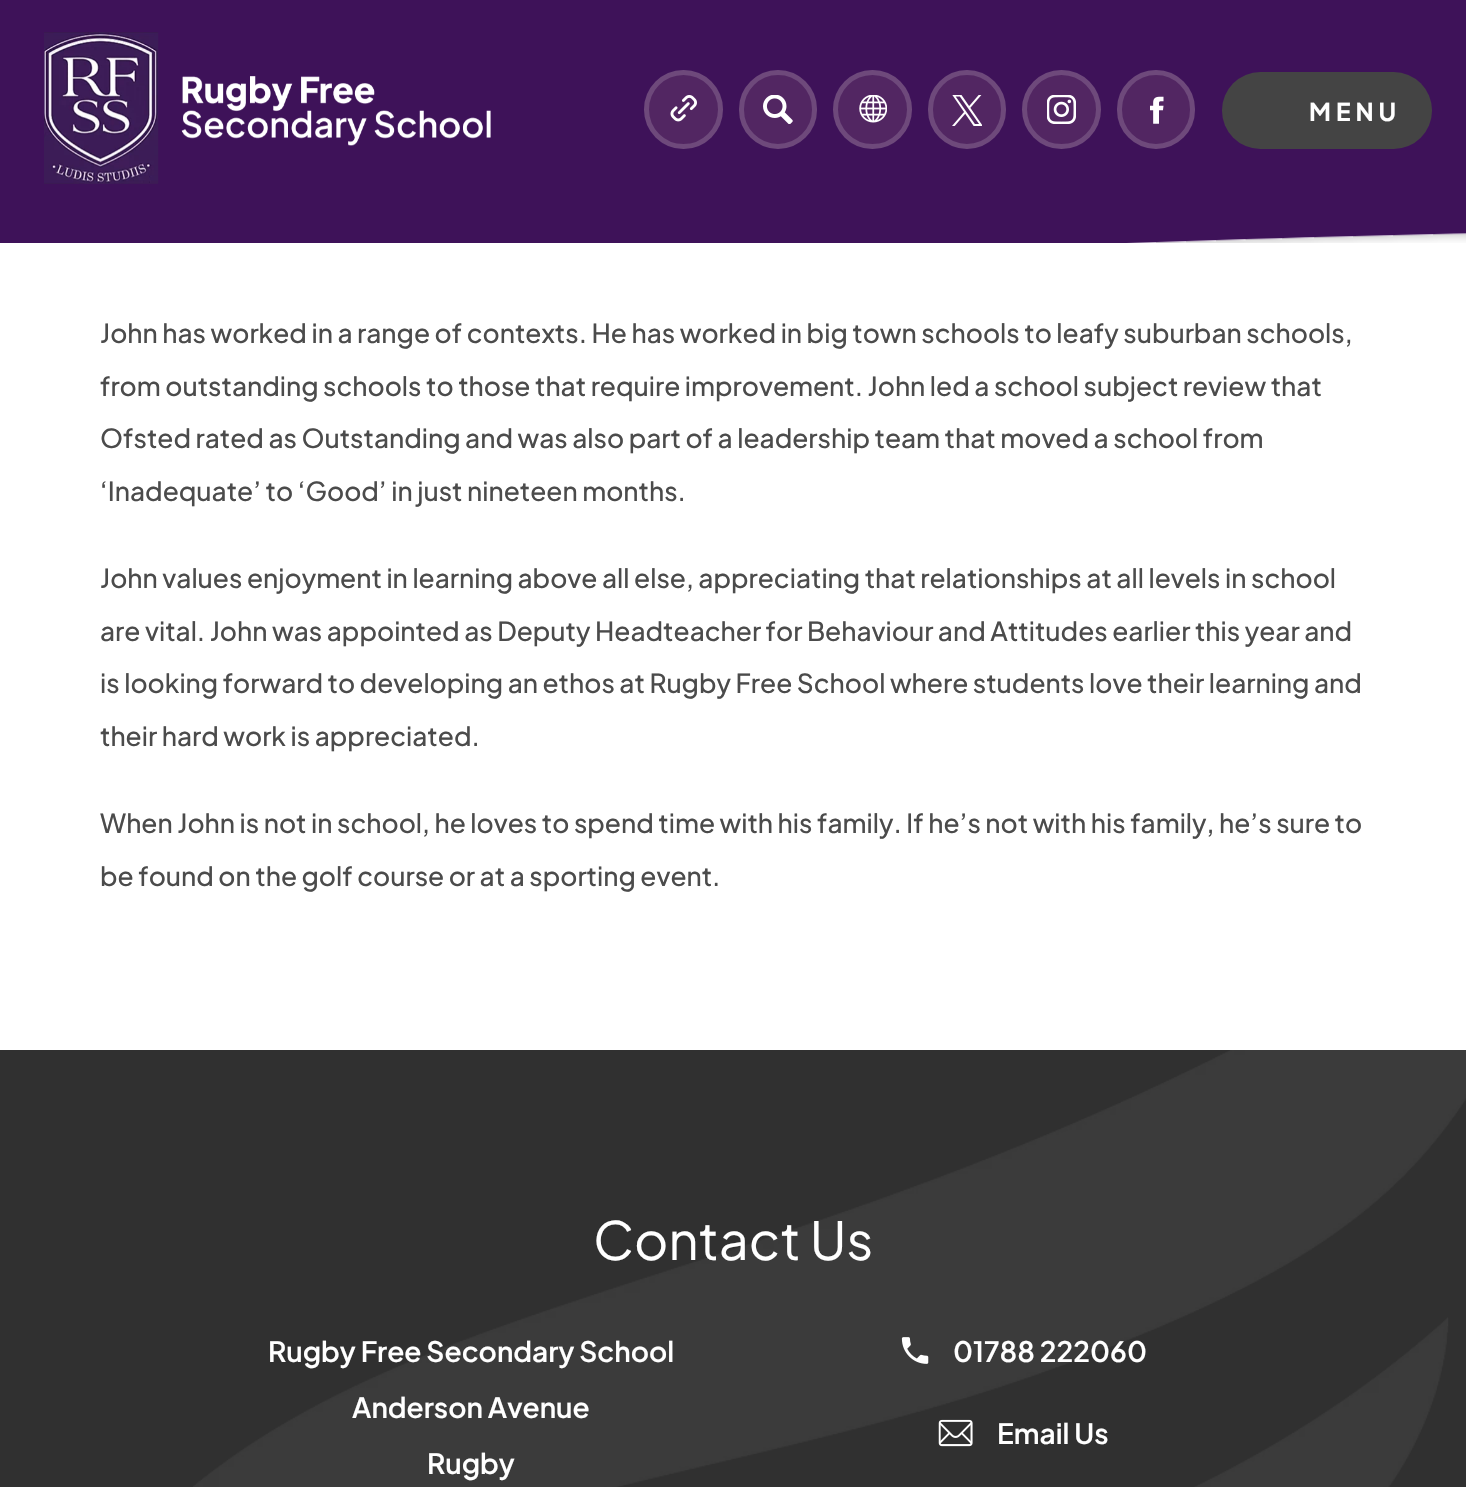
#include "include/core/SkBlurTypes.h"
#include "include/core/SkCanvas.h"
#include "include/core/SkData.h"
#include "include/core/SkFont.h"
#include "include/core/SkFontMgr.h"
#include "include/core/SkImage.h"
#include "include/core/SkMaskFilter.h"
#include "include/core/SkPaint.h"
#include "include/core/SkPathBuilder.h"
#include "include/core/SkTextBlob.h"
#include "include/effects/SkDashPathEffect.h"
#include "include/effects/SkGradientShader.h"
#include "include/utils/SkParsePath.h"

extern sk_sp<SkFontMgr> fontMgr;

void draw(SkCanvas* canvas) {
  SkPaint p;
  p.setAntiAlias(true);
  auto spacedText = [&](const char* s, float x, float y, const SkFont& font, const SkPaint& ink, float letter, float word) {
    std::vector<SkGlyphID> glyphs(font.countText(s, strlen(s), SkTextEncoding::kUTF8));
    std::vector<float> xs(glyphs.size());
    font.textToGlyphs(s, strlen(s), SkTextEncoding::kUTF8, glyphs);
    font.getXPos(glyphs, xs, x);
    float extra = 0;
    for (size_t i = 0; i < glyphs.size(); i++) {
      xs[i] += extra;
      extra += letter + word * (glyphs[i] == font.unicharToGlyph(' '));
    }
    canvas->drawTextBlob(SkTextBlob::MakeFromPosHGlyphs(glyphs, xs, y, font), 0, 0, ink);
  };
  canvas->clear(SK_ColorWHITE);
  p.setColor(SkColorSetRGB(62, 18, 89));
  canvas->drawRect(SkRect::MakeLTRB(0, 0, 1466, 217), p);
  canvas->drawImageRect(SkImages::DeferredFromEncodedData(SkData::MakeFromFileName("images/1.png")), SkRect::MakeLTRB(44, 32, 491, 184), SkSamplingOptions());
  p.setColor(SkColorSetRGB(82, 38, 98));
  canvas->drawCircle(683.5f, 109.5f, 39.5f, p);
  p.setStyle(SkPaint::kStroke_Style);
  p.setStrokeWidth(5);
  p.setColor(SkColorSetARGB(41, 255, 255, 255));
  canvas->drawCircle(683.5f, 109.5f, 37, p);
  canvas->drawImageRect(SkImages::DeferredFromEncodedData(SkData::MakeFromFileName("images/2.png")), SkRect::MakeLTRB(670, 95, 697, 122), SkSamplingOptions());
  p.setStyle(SkPaint::kFill_Style);
  p.setColor(SkColorSetRGB(82, 38, 98));
  canvas->drawRoundRect(SkRect::MakeLTRB(739, 70, 817, 149), 39, 39, p);
  p.setStyle(SkPaint::kStroke_Style);
  p.setColor(SkColorSetARGB(41, 255, 255, 255));
  canvas->drawRoundRect(SkRect::MakeLTRB(741.5f, 72.5f, 814.5f, 146.5f), 36.5f, 36.5f, p);
  canvas->drawImageRect(SkImages::DeferredFromEncodedData(SkData::MakeFromFileName("images/3.png")), SkRect::MakeLTRB(763, 95, 793, 124), SkSamplingOptions());
  p.setStyle(SkPaint::kFill_Style);
  p.setColor(SkColorSetRGB(82, 38, 98));
  canvas->drawCircle(872.5f, 109.5f, 39.5f, p);
  p.setStyle(SkPaint::kStroke_Style);
  p.setColor(SkColorSetARGB(41, 255, 255, 255));
  canvas->drawCircle(872.5f, 109.5f, 37, p);
  canvas->drawImageRect(SkImages::DeferredFromEncodedData(SkData::MakeFromFileName("images/4.png")), SkRect::MakeLTRB(859, 95, 887, 123), SkSamplingOptions());
  p.setStyle(SkPaint::kFill_Style);
  p.setColor(SkColorSetRGB(82, 38, 98));
  canvas->drawRoundRect(SkRect::MakeLTRB(928, 70, 1006, 149), 39, 39, p);
  p.setStyle(SkPaint::kStroke_Style);
  p.setColor(SkColorSetARGB(41, 255, 255, 255));
  canvas->drawRoundRect(SkRect::MakeLTRB(930.5f, 72.5f, 1003.5f, 146.5f), 36.5f, 36.5f, p);
  canvas->drawImageRect(SkImages::DeferredFromEncodedData(SkData::MakeFromFileName("images/5.png")), SkRect::MakeLTRB(952, 95, 982, 126), SkSamplingOptions());
  p.setStyle(SkPaint::kFill_Style);
  p.setColor(SkColorSetRGB(82, 38, 98));
  canvas->drawCircle(1061.5f, 109.5f, 39.5f, p);
  p.setStyle(SkPaint::kStroke_Style);
  p.setColor(SkColorSetARGB(41, 255, 255, 255));
  canvas->drawCircle(1061.5f, 109.5f, 37, p);
  canvas->drawImageRect(SkImages::DeferredFromEncodedData(SkData::MakeFromFileName("images/6.png")), SkRect::MakeLTRB(1047, 95, 1076, 124), SkSamplingOptions());
  p.setStyle(SkPaint::kFill_Style);
  p.setColor(SkColorSetRGB(82, 38, 98));
  canvas->drawRoundRect(SkRect::MakeLTRB(1117, 70, 1195, 149), 39, 39, p);
  p.setStyle(SkPaint::kStroke_Style);
  p.setColor(SkColorSetARGB(41, 255, 255, 255));
  canvas->drawRoundRect(SkRect::MakeLTRB(1119.5f, 72.5f, 1192.5f, 146.5f), 36.5f, 36.5f, p);
  canvas->drawImageRect(SkImages::DeferredFromEncodedData(SkData::MakeFromFileName("images/7.png")), SkRect::MakeLTRB(1150, 96, 1164, 124), SkSamplingOptions());
  p.setStyle(SkPaint::kFill_Style);
  p.setColor(SkColorSetRGB(68, 68, 68));
  canvas->drawRoundRect(SkRect::MakeLTRB(1222, 72, 1432, 149), 38.5f, 38.5f, p);
  canvas->drawImageRect(SkImages::DeferredFromEncodedData(SkData::MakeFromFileName("images/8.png")), SkRect::MakeLTRB(0, 217, 1466, 243), SkSamplingOptions());
  p.setColor(SkColorSetRGB(48, 48, 48));
  canvas->drawRect(SkRect::MakeLTRB(0, 1050, 1466, 1487), p);
  canvas->drawImageRect(SkImages::DeferredFromEncodedData(SkData::MakeFromFileName("images/9.png")), SkRect::MakeLTRB(193, 1050, 1466, 1487), SkSamplingOptions());
  canvas->drawImageRect(SkImages::DeferredFromEncodedData(SkData::MakeFromFileName("images/10.png")), SkRect::MakeLTRB(901, 1337, 929, 1364), SkSamplingOptions());
  canvas->drawImageRect(SkImages::DeferredFromEncodedData(SkData::MakeFromFileName("images/11.png")), SkRect::MakeLTRB(938, 1419, 973, 1447), SkSamplingOptions());
  SkFont font1(fontMgr->matchFamilyStyle("Plus Jakarta Sans", SkFontStyle::Bold()), 24.5f);
  font1.setSubpixel(true);
  p.setColor(SK_ColorWHITE);
  spacedText("MENU", 1309, 121, font1, p, 5, 0);
  SkFont font2(fontMgr->matchFamilyStyle("Plus Jakarta Sans", SkFontStyle(500, SkFontStyle::kNormal_Width, SkFontStyle::kUpright_Slant)), 26.25f);
  font2.setSubpixel(true);
  p.setColor(SkColorSetRGB(75, 75, 75));
  canvas->drawString("John has worked in a range of contexts. He has worked in big town schools to leafy suburban schools,", 100, 343, font2, p);
  canvas->drawString("from outstanding schools to those that require improvement. John led a school subject review that", 100, 396, font2, p);
  canvas->drawString("Ofsted rated as Outstanding and was also part of a leadership team that moved a school from", 100, 448, font2, p);
  canvas->drawString("‘Inadequate’ to ‘Good’ in just nineteen months.", 100, 501, font2, p);
  canvas->drawString("John values enjoyment in learning above all else, appreciating that relationships at all levels in school", 100, 588, font2, p);
  canvas->drawString("are vital. John was appointed as Deputy Headteacher for Behaviour and Attitudes earlier this year and", 100, 641, font2, p);
  canvas->drawString("is looking forward to developing an ethos at Rugby Free School where students love their learning and", 100, 693, font2, p);
  canvas->drawString("their hard work is appreciated.", 100, 746, font2, p);
  canvas->drawString("When John is not in school, he loves to spend time with his family. If he’s not with his family, he’s sure to", 100, 833, font2, p);
  canvas->drawString("be found on the golf course or at a sporting event.", 100, 886, font2, p);
  SkFont font3(fontMgr->matchFamilyStyle("Plus Jakarta Sans", SkFontStyle::Normal()), 52.5f);
  font3.setSubpixel(true);
  p.setColor(SK_ColorWHITE);
  canvas->drawString("Contact Us", 593, 1260, font3, p);
  SkFont font4(fontMgr->matchFamilyStyle("Plus Jakarta Sans", SkFontStyle(600, SkFontStyle::kNormal_Width, SkFontStyle::kUpright_Slant)), 28);
  font4.setSubpixel(true);
  canvas->drawString("Rugby Free Secondary School", 268, 1362, font4, p);
  canvas->drawString("Anderson Avenue", 352, 1418, font4, p);
  canvas->drawString("Rugby", 427, 1474, font4, p);
  canvas->drawString("01788 222060", 953, 1362, font4, p);
  canvas->drawString("Email Us", 997, 1444, font4, p);
}
